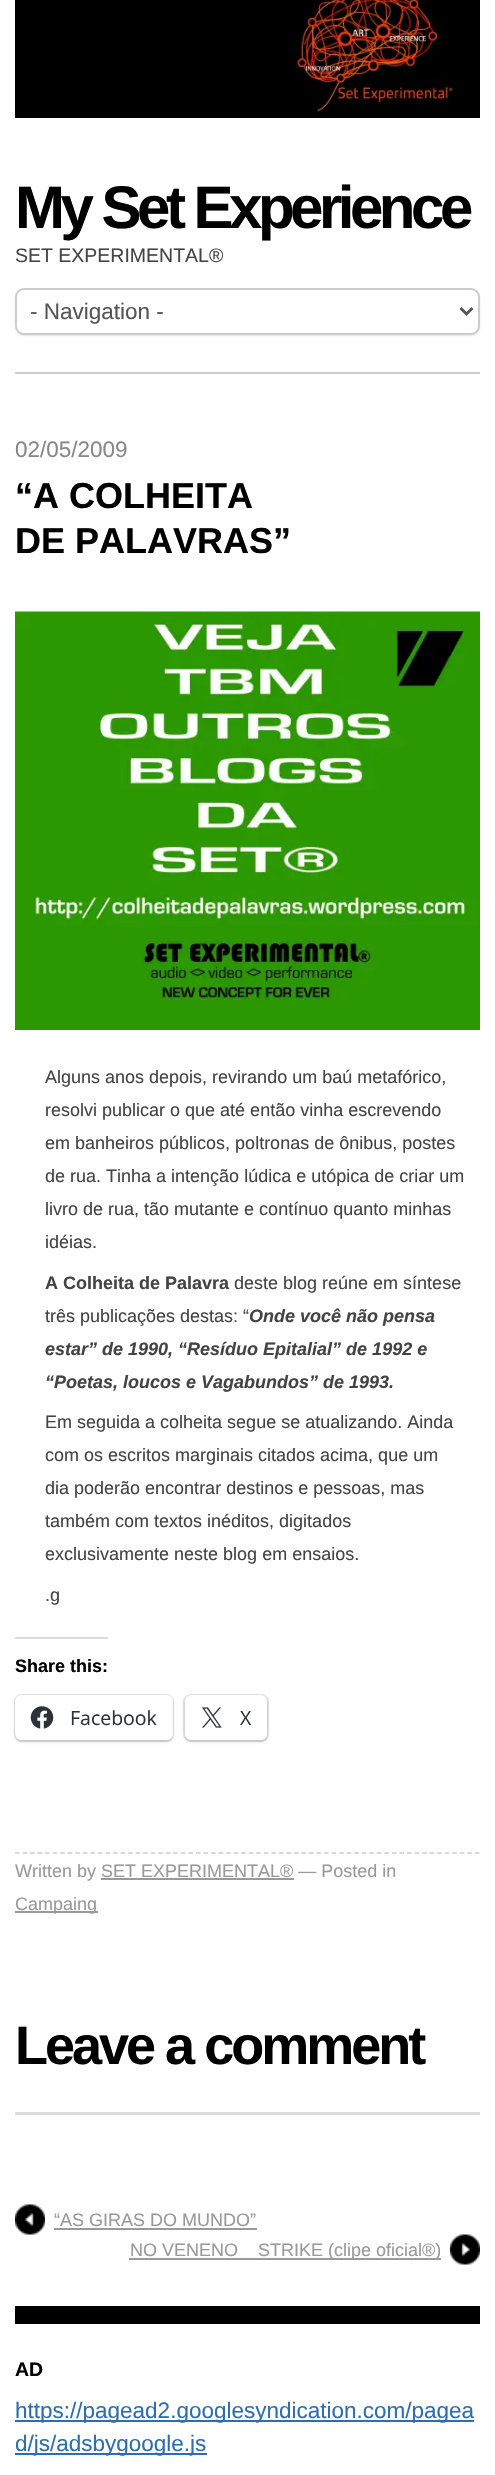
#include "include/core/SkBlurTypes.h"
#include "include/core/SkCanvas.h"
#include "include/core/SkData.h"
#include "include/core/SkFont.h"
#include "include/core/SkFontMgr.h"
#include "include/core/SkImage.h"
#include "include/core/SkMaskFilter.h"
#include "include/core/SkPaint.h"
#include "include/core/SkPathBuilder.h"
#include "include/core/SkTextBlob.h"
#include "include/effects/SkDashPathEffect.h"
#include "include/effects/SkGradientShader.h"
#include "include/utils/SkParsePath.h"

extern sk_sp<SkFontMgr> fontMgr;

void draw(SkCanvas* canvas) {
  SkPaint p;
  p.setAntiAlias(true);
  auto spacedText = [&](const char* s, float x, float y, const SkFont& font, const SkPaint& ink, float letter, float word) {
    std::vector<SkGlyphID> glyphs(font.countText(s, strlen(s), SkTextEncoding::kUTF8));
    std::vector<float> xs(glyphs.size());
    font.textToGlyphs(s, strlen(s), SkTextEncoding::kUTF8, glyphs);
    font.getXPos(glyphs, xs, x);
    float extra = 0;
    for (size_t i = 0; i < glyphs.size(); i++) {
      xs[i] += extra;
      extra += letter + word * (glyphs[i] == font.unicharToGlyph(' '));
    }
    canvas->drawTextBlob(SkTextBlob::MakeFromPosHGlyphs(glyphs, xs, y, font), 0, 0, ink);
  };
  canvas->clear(SK_ColorWHITE);
  p.setColor(SkColorSetRGB(204, 204, 204));
  canvas->drawRect(SkRect::MakeLTRB(15, 372, 480, 374), p);
  canvas->drawImageRect(SkImages::DeferredFromEncodedData(SkData::MakeFromFileName("images/1.png")), SkRect::MakeLTRB(15, 0, 480, 118), SkSamplingOptions());
  p.setColor(SkColorSetARGB(26, 0, 0, 0));
  p.setMaskFilter(SkMaskFilter::MakeBlur(kNormal_SkBlurStyle, 1));
  canvas->drawRoundRect(SkRect::MakeLTRB(15, 290, 480, 336), 9, 9, p);
  p.setMaskFilter(nullptr);
  p.setColor(SK_ColorWHITE);
  canvas->drawRoundRect(SkRect::MakeLTRB(16, 289, 479, 334), 8, 8, p);
  p.setStyle(SkPaint::kStroke_Style);
  p.setStrokeWidth(2);
  p.setColor(SkColorSetRGB(204, 204, 204));
  canvas->drawRoundRect(SkRect::MakeLTRB(16, 289, 479, 334), 8, 8, p);
  p.setStrokeWidth(3);
  p.setColor(SkColorSetRGB(85, 85, 85));
  canvas->drawPath(SkPathBuilder().moveTo(460.5f, 308).lineTo(466.5f, 314).lineTo(472.5f, 308).detach(), p);
  p.setStyle(SkPaint::kFill_Style);
  p.setColor(SK_ColorBLACK);
  canvas->drawRect(SkRect::MakeLTRB(15, 2306, 480, 2324), p);
  canvas->drawImageRect(SkImages::DeferredFromEncodedData(SkData::MakeFromFileName("images/2.png")), SkRect::MakeLTRB(15, 611, 480, 1030), SkSamplingOptions());
  p.setColor(SkColorSetRGB(220, 220, 222));
  canvas->drawRect(SkRect::MakeLTRB(15, 1637, 108, 1639), p);
  p.setStyle(SkPaint::kStroke_Style);
  p.setStrokeWidth(2);
  p.setColor(SkColorSetRGB(224, 224, 224));
  canvas->drawRoundRect(SkRect::MakeLTRB(15, 1695, 173, 1741), 7, 7, p);
  p.setStyle(SkPaint::kFill_Style);
  p.setColor(SkColorSetARGB(31, 0, 0, 0));
  p.setMaskFilter(SkMaskFilter::MakeBlur(kNormal_SkBlurStyle, 1.5f));
  canvas->drawRoundRect(SkRect::MakeLTRB(15, 1697, 173, 1742), 6, 6, p);
  p.setMaskFilter(nullptr);
  p.setColor(SK_ColorWHITE);
  canvas->drawRoundRect(SkRect::MakeLTRB(15, 1695, 173, 1740), 6, 6, p);
  canvas->drawImageRect(SkImages::DeferredFromEncodedData(SkData::MakeFromFileName("images/3.png")), SkRect::MakeLTRB(30, 1706, 54, 1729), SkSamplingOptions());
  p.setStyle(SkPaint::kStroke_Style);
  p.setColor(SkColorSetRGB(224, 224, 224));
  canvas->drawRoundRect(SkRect::MakeLTRB(184, 1695, 268, 1741), 7, 7, p);
  p.setStyle(SkPaint::kFill_Style);
  p.setColor(SkColorSetARGB(31, 0, 0, 0));
  p.setMaskFilter(SkMaskFilter::MakeBlur(kNormal_SkBlurStyle, 1.5f));
  canvas->drawRoundRect(SkRect::MakeLTRB(185, 1697, 267, 1742), 6, 6, p);
  p.setMaskFilter(nullptr);
  p.setColor(SK_ColorWHITE);
  canvas->drawRoundRect(SkRect::MakeLTRB(185, 1695, 267, 1740), 6, 6, p);
  canvas->drawImageRect(SkImages::DeferredFromEncodedData(SkData::MakeFromFileName("images/4.png")), SkRect::MakeLTRB(202, 1707, 222, 1728), SkSamplingOptions());
  p.setStyle(SkPaint::kStroke_Style);
  p.setStrokeWidth(1.5f);
  p.setColor(SkColorSetRGB(204, 204, 204));
  p.setPathEffect(SkDashPathEffect::Make({{4.5f, 3.04f}}, 0));
  canvas->drawPath(SkPathBuilder().moveTo(15, 1853).lineTo(480, 1853).detach(), p);
  p.setPathEffect(nullptr);
  p.setStyle(SkPaint::kFill_Style);
  p.setColor(SkColorSetRGB(153, 153, 153));
  canvas->drawRect(SkRect::MakeLTRB(101, 1878, 294, 1880), p);
  canvas->drawRect(SkRect::MakeLTRB(15, 1911, 98, 1913), p);
  p.setColor(SkColorSetRGB(220, 220, 222));
  canvas->drawRect(SkRect::MakeLTRB(15, 2112, 480, 2115), p);
  canvas->drawImageRect(SkImages::DeferredFromEncodedData(SkData::MakeFromFileName("images/5.png")), SkRect::MakeLTRB(15, 2204, 45, 2235), SkSamplingOptions());
  p.setColor(SkColorSetRGB(153, 153, 153));
  canvas->drawRect(SkRect::MakeLTRB(54, 2228, 257, 2230), p);
  canvas->drawImageRect(SkImages::DeferredFromEncodedData(SkData::MakeFromFileName("images/6.png")), SkRect::MakeLTRB(450, 2234, 480, 2265), SkSamplingOptions());
  canvas->drawRect(SkRect::MakeLTRB(129, 2258, 441, 2260), p);
  p.setColor(SkColorSetRGB(46, 110, 176));
  canvas->drawRect(SkRect::MakeLTRB(15, 2420, 474, 2422), p);
  canvas->drawRect(SkRect::MakeLTRB(15, 2453, 207, 2455), p);
  SkFont font1(fontMgr->matchFamilyStyle("Liberation Sans", SkFontStyle::Bold()), 60);
  font1.setSubpixel(true);
  p.setColor(SK_ColorBLACK);
  spacedText("My Set Experience", 15, 228, font1, p, -4.5f, 0);
  SkFont font2(fontMgr->matchFamilyStyle("Liberation Sans", SkFontStyle::Normal()), 19.5f);
  font2.setSubpixel(true);
  p.setColor(SkColorSetRGB(68, 68, 68));
  canvas->drawString("SET EXPERIMENTAL®", 15, 262, font2, p);
  SkFont font3(fontMgr->matchFamilyStyle("Liberation Sans", SkFontStyle::Normal()), 22.5f);
  font3.setSubpixel(true);
  p.setColor(SkColorSetRGB(85, 85, 85));
  canvas->drawString("- Navigation -", 30, 319, font3, p);
  p.setColor(SkColorSetRGB(136, 136, 136));
  canvas->drawString("02/05/2009", 15, 457, font3, p);
  SkFont font4(fontMgr->matchFamilyStyle("Liberation Sans", SkFontStyle::Bold()), 36);
  font4.setSubpixel(true);
  p.setColor(SK_ColorBLACK);
  canvas->drawString("“A COLHEITA", 15, 508, font4, p);
  canvas->drawString("DE PALAVRAS”", 15, 553, font4, p);
  SkFont font5(fontMgr->matchFamilyStyle("Liberation Sans", SkFontStyle::Normal()), 18);
  font5.setSubpixel(true);
  p.setColor(SkColorSetRGB(68, 68, 68));
  canvas->drawString("Alguns anos depois, revirando um baú metafórico,", 45, 1083, font5, p);
  canvas->drawString("resolvi publicar o que até então vinha escrevendo", 45, 1116, font5, p);
  canvas->drawString("em banheiros públicos, poltronas de ônibus, postes", 45, 1149, font5, p);
  canvas->drawString("de rua. Tinha a intenção lúdica e utópica de criar um", 45, 1182, font5, p);
  canvas->drawString("livro de rua, tão mutante e contínuo quanto minhas", 45, 1215, font5, p);
  canvas->drawString("idéias.", 45, 1248, font5, p);
  SkFont font6(fontMgr->matchFamilyStyle("Liberation Sans", SkFontStyle::Bold()), 18);
  font6.setSubpixel(true);
  canvas->drawString("A Colheita de Palavra", 45, 1289, font6, p);
  canvas->drawString("deste blog reúne em síntese", 234, 1289, font5, p);
  canvas->drawString("três publicações destas: “", 45, 1322, font5, p);
  SkFont font7(fontMgr->matchFamilyStyle("Liberation Sans", SkFontStyle::BoldItalic()), 18);
  font7.setSubpixel(true);
  canvas->drawString("Onde você não pensa", 249, 1322, font7, p);
  canvas->drawString("estar” de 1990, “Resíduo Epitalial” de 1992 e", 45, 1355, font7, p);
  canvas->drawString("“Poetas, loucos e Vagabundos” de 1993.", 45, 1388, font7, p);
  canvas->drawString("Em seguida a colheita segue se atualizando. Ainda", 45, 1428, font5, p);
  canvas->drawString("com os escritos marginais citados acima, que um", 45, 1461, font5, p);
  canvas->drawString("dia poderão encontrar destinos e pessoas, mas", 45, 1494, font5, p);
  canvas->drawString("também com textos inéditos, digitados", 45, 1527, font5, p);
  canvas->drawString("exclusivamente neste blog em ensaios.", 45, 1560, font5, p);
  canvas->drawString(".g", 45, 1601, font5, p);
  p.setColor(SK_ColorBLACK);
  canvas->drawString("Share this:", 15, 1672, font6, p);
  SkFont font8(fontMgr->matchFamilyStyle("Open Sans", SkFontStyle::Normal()), 19.5f);
  font8.setSubpixel(true);
  p.setColor(SkColorSetRGB(44, 51, 56));
  canvas->drawString("Facebook", 70, 1725, font8, p);
  canvas->drawString("X", 240, 1725, font8, p);
  p.setColor(SkColorSetRGB(153, 153, 153));
  canvas->drawString("Written by SET EXPERIMENTAL® — Posted in", 15, 1877, font5, p);
  canvas->drawString("Campaing", 15, 1910, font5, p);
  SkFont font9(fontMgr->matchFamilyStyle("Liberation Sans", SkFontStyle::Bold()), 54);
  font9.setSubpixel(true);
  p.setColor(SK_ColorBLACK);
  spacedText("Leave a comment", 15, 2064, font9, p, -3, 0);
  p.setColor(SkColorSetRGB(153, 153, 153));
  canvas->drawString("“AS GIRAS DO MUNDO”", 54, 2226, font5, p);
  canvas->drawString("NO VENENO _ STRIKE (clipe oficial®)", 130, 2256, font5, p);
  SkFont font10(fontMgr->matchFamilyStyle("Liberation Sans", SkFontStyle::Bold()), 19.5f);
  font10.setSubpixel(true);
  p.setColor(SK_ColorBLACK);
  canvas->drawString("AD", 15, 2376, font10, p);
  p.setColor(SkColorSetRGB(46, 110, 176));
  canvas->drawString("https://pagead2.googlesyndication.com/pagea", 15, 2418, font3, p);
  canvas->drawString("d/js/adsbygoogle.js", 15, 2451, font3, p);
}
